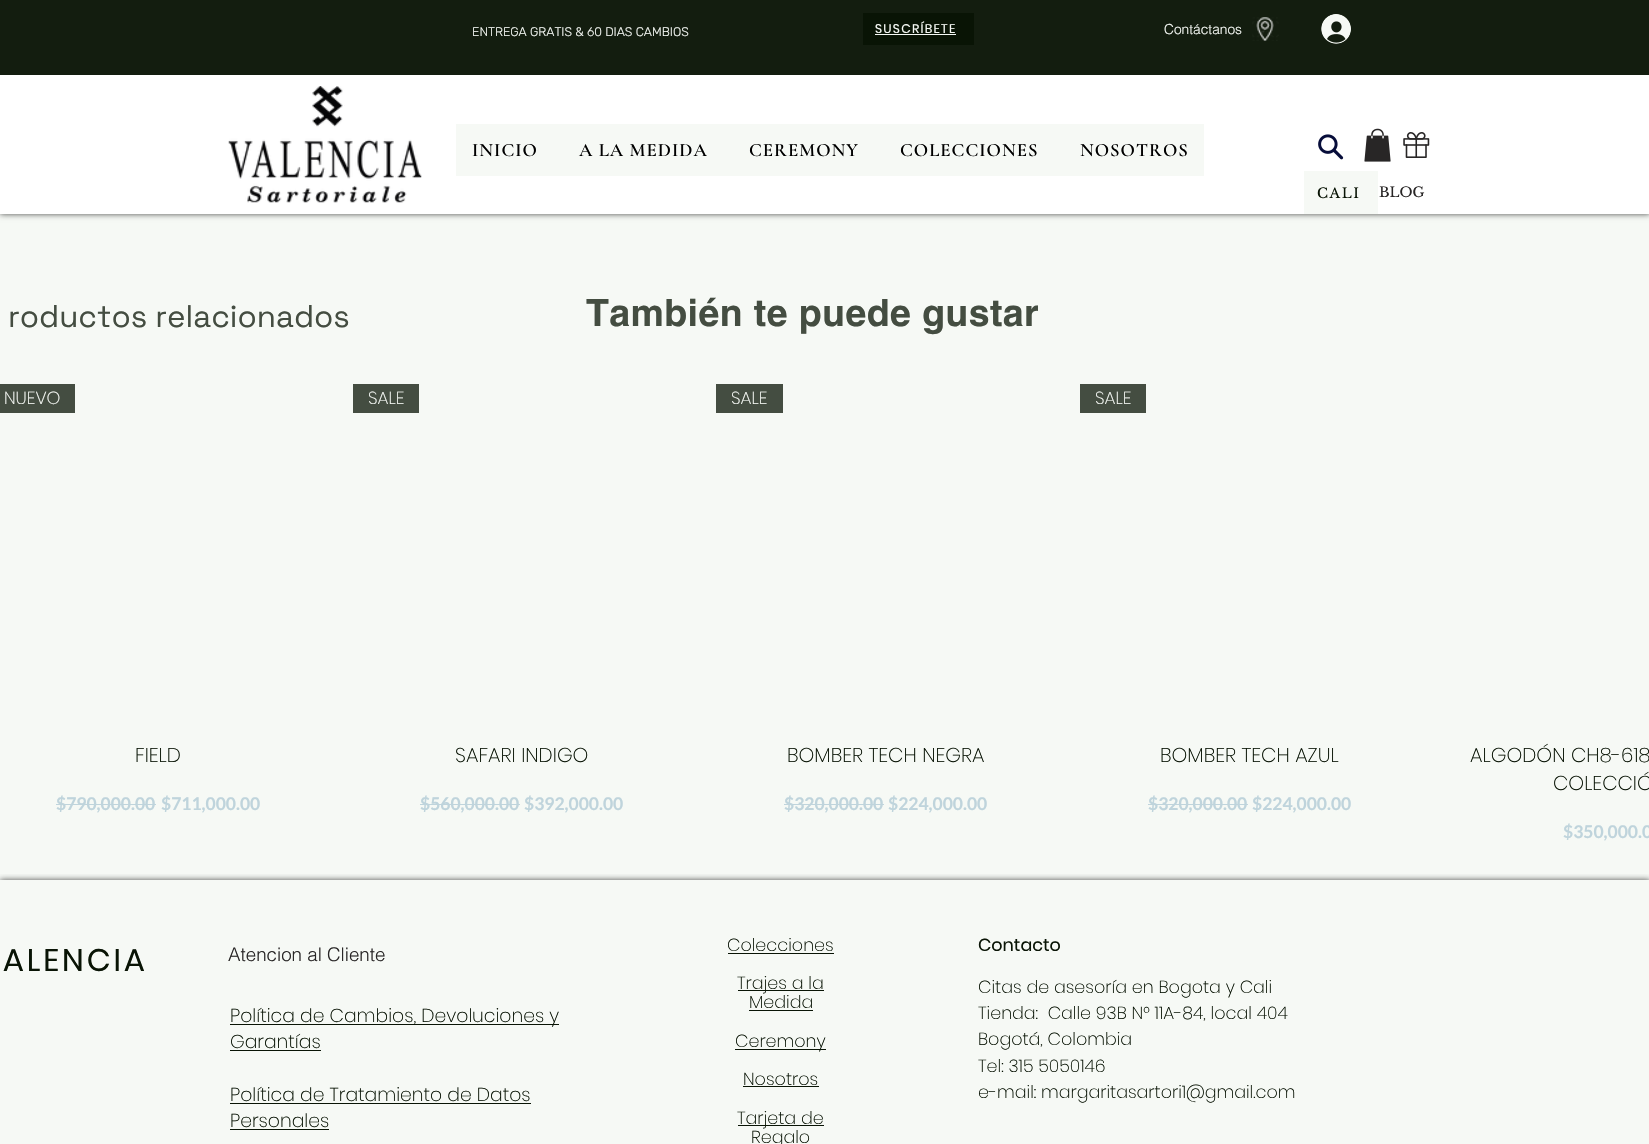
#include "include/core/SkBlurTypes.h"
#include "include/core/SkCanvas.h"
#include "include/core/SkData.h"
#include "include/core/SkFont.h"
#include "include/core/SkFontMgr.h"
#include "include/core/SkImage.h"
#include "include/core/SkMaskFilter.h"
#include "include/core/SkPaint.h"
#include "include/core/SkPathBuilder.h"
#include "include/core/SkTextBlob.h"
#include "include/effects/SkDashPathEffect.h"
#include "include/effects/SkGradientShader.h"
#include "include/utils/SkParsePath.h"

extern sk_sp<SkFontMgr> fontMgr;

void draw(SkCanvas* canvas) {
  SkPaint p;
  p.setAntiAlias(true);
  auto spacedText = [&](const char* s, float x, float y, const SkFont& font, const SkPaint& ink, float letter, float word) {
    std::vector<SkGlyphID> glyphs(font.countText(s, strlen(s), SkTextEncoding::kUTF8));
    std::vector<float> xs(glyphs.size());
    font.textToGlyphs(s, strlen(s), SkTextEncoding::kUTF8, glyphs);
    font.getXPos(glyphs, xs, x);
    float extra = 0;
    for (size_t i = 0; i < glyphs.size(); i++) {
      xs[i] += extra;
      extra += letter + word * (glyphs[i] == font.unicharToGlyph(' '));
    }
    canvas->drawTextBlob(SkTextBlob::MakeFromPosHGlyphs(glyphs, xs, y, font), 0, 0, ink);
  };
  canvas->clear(SkColorSetRGB(246, 249, 245));
  p.setColor(SkColorSetARGB(179, 0, 0, 0));
  p.setMaskFilter(SkMaskFilter::MakeBlur(kNormal_SkBlurStyle, 3));
  canvas->drawRect(SkRect::MakeLTRB(0, 0, 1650, 214), p);
  p.setMaskFilter(nullptr);
  p.setColor(SK_ColorWHITE);
  canvas->drawRect(SkRect::MakeLTRB(0, 75, 1649, 214), p);
  p.setColor(SkColorSetRGB(19, 29, 15));
  canvas->drawRect(SkRect::MakeLTRB(0, 0, 1649, 75), p);
  p.setColor(SkColorSetRGB(9, 20, 5));
  canvas->drawRect(SkRect::MakeLTRB(863, 13, 974, 45), p);
  p.setColor(SkColorSetRGB(246, 249, 245));
  canvas->drawRect(SkRect::MakeLTRB(875, 34, 956, 35), p);
  canvas->drawImageRect(SkImages::DeferredFromEncodedData(SkData::MakeFromFileName("images/1.png")), SkRect::MakeLTRB(1252, 17, 1279, 41), SkSamplingOptions());
  canvas->drawImageRect(SkImages::DeferredFromEncodedData(SkData::MakeFromFileName("images/2.png")), SkRect::MakeLTRB(1321, 14, 1351, 44), SkSamplingOptions());
  canvas->drawImageRect(SkImages::DeferredFromEncodedData(SkData::MakeFromFileName("images/3.png")), SkRect::MakeLTRB(228, 86, 422, 203), SkSamplingOptions());
  canvas->drawRect(SkRect::MakeLTRB(456, 124, 1204, 176), p);
  canvas->drawImageRect(SkImages::DeferredFromEncodedData(SkData::MakeFromFileName("images/4.png")), SkRect::MakeLTRB(1318, 134, 1344, 160), SkSamplingOptions());
  canvas->drawImageRect(SkImages::DeferredFromEncodedData(SkData::MakeFromFileName("images/5.png")), SkRect::MakeLTRB(1364, 128, 1391, 162), SkSamplingOptions());
  canvas->drawImageRect(SkImages::DeferredFromEncodedData(SkData::MakeFromFileName("images/6.png")), SkRect::MakeLTRB(1403, 132, 1430, 158), SkSamplingOptions());
  canvas->drawRect(SkRect::MakeLTRB(1304, 171, 1378, 214), p);
  p.setColor(SkColorSetRGB(68, 77, 65));
  canvas->drawRect(SkRect::MakeLTRB(0, 384, 75, 413), p);
  p.setColor(SkColorSetRGB(191, 212, 220));
  canvas->drawRect(SkRect::MakeLTRB(56, 804, 156, 805), p);
  p.setColor(SkColorSetRGB(68, 77, 65));
  canvas->drawRect(SkRect::MakeLTRB(353, 384, 419, 413), p);
  p.setColor(SkColorSetRGB(191, 212, 220));
  canvas->drawRect(SkRect::MakeLTRB(420, 804, 520, 805), p);
  p.setColor(SkColorSetRGB(68, 77, 65));
  canvas->drawRect(SkRect::MakeLTRB(716, 384, 783, 413), p);
  p.setColor(SkColorSetRGB(191, 212, 220));
  canvas->drawRect(SkRect::MakeLTRB(784, 804, 884, 805), p);
  p.setColor(SkColorSetRGB(68, 77, 65));
  canvas->drawRect(SkRect::MakeLTRB(1080, 384, 1146, 413), p);
  p.setColor(SkColorSetRGB(191, 212, 220));
  canvas->drawRect(SkRect::MakeLTRB(1148, 804, 1248, 805), p);
  canvas->save();
  canvas->clipRect(SkRect::MakeLTRB(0, 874, 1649, 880));
  p.setColor(SkColorSetARGB(179, 0, 0, 0));
  p.setMaskFilter(SkMaskFilter::MakeBlur(kNormal_SkBlurStyle, 3));
  canvas->drawRect(SkRect::MakeLTRB(0, 880, 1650, 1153), p);
  p.setMaskFilter(nullptr);
  canvas->restore();
  p.setColor(SkColorSetRGB(9, 20, 5));
  canvas->drawRect(SkRect::MakeLTRB(728, 953, 834, 954), p);
  canvas->drawRect(SkRect::MakeLTRB(738, 990, 824, 991), p);
  canvas->drawRect(SkRect::MakeLTRB(749, 1010, 813, 1011), p);
  canvas->drawRect(SkRect::MakeLTRB(735, 1049, 826, 1050), p);
  canvas->drawRect(SkRect::MakeLTRB(743, 1086, 819, 1087), p);
  canvas->drawRect(SkRect::MakeLTRB(738, 1125, 824, 1126), p);
  canvas->drawRect(SkRect::MakeLTRB(230, 1024, 559, 1025), p);
  canvas->drawRect(SkRect::MakeLTRB(230, 1050, 321, 1051), p);
  canvas->drawRect(SkRect::MakeLTRB(230, 1103, 531, 1104), p);
  canvas->drawRect(SkRect::MakeLTRB(230, 1129, 329, 1130), p);
  SkFont font1(fontMgr->matchFamilyStyle("Rubik", SkFontStyle(300, SkFontStyle::kNormal_Width, SkFontStyle::kUpright_Slant)), 12.5f);
  font1.setSubpixel(true);
  p.setColor(SkColorSetRGB(246, 249, 245));
  canvas->drawString("ENTREGA GRATIS & 60 DIAS CAMBIOS", 472, 36, font1, p);
  SkFont font2(fontMgr->matchFamilyStyle("Poppins", SkFontStyle::Normal()), 12.5f);
  font2.setSubpixel(true);
  spacedText("SUSCRÍBETE", 875, 33, font2, p, 1.25f, 0);
  SkFont font3(fontMgr->matchFamilyStyle("helvetica", SkFontStyle(300, SkFontStyle::kNormal_Width, SkFontStyle::kUpright_Slant)), 13.75f);
  font3.setSubpixel(true);
  canvas->drawString("Contáctanos", 1164, 34, font3, p);
  SkFont font4(fontMgr->matchFamilyStyle("Cormorant Garamond", SkFontStyle(600, SkFontStyle::kNormal_Width, SkFontStyle::kUpright_Slant)), 18.75f);
  font4.setSubpixel(true);
  p.setColor(SK_ColorBLACK);
  spacedText("INICIO", 472, 156, font4, p, 1, 0);
  spacedText("A LA MEDIDA", 579, 156, font4, p, 1, 0);
  spacedText("CEREMONY", 749, 156, font4, p, 1, 0);
  spacedText("COLECCIONES", 900, 156, font4, p, 1, 0);
  spacedText("NOSOTROS", 1080, 156, font4, p, 1, 0);
  SkFont font5(fontMgr->matchFamilyStyle("Libre Baskerville", SkFontStyle::Normal()), 13.75f);
  font5.setSubpixel(true);
  p.setColor(SkColorSetRGB(9, 20, 5));
  spacedText("CALI", 1317, 198, font5, p, 1.5f, 0);
  p.setColor(SkColorSetRGB(40, 38, 38));
  canvas->drawString("BLOG", 1379, 197, font5, p);
  SkFont font6(fontMgr->matchFamilyStyle("helvetica", SkFontStyle::Bold()), 37.5f);
  font6.setSubpixel(true);
  p.setColor(SkColorSetRGB(68, 77, 65));
  spacedText("También te puede gustar", 586, 326, font6, p, 0.4f, 0);
  SkFont font7(fontMgr->matchFamilyStyle("Space Grotesk", SkFontStyle::Normal()), 31.25f);
  font7.setSubpixel(true);
  canvas->drawString("roductos relacionados", 8, 327, font7, p);
  SkFont font8(fontMgr->matchFamilyStyle("Poppins", SkFontStyle(200, SkFontStyle::kNormal_Width, SkFontStyle::kUpright_Slant)), 17.5f);
  font8.setSubpixel(true);
  p.setColor(SkColorSetRGB(246, 249, 245));
  canvas->drawString("NUEVO", 4, 404, font8, p);
  SkFont font9(fontMgr->matchFamilyStyle("Poppins", SkFontStyle(200, SkFontStyle::kNormal_Width, SkFontStyle::kUpright_Slant)), 20);
  font9.setSubpixel(true);
  p.setColor(SkColorSetRGB(9, 20, 5));
  canvas->drawString("FIELD", 135, 762, font9, p);
  SkFont font10(fontMgr->matchFamilyStyle("Lato", SkFontStyle::Bold()), 17.5f);
  font10.setSubpixel(true);
  p.setColor(SkColorSetRGB(191, 212, 220));
  canvas->drawString("$790,000.00", 56, 810, font10, p);
  canvas->drawString("$711,000.00", 161, 810, font10, p);
  p.setColor(SkColorSetRGB(246, 249, 245));
  canvas->drawString("SALE", 368, 404, font8, p);
  p.setColor(SkColorSetRGB(9, 20, 5));
  canvas->drawString("SAFARI INDIGO", 455, 762, font9, p);
  p.setColor(SkColorSetRGB(191, 212, 220));
  canvas->drawString("$560,000.00", 420, 810, font10, p);
  canvas->drawString("$392,000.00", 524, 810, font10, p);
  p.setColor(SkColorSetRGB(246, 249, 245));
  canvas->drawString("SALE", 731, 404, font8, p);
  p.setColor(SkColorSetRGB(9, 20, 5));
  canvas->drawString("BOMBER TECH NEGRA", 787, 762, font9, p);
  p.setColor(SkColorSetRGB(191, 212, 220));
  canvas->drawString("$320,000.00", 784, 810, font10, p);
  canvas->drawString("$224,000.00", 888, 810, font10, p);
  p.setColor(SkColorSetRGB(246, 249, 245));
  canvas->drawString("SALE", 1095, 404, font8, p);
  p.setColor(SkColorSetRGB(9, 20, 5));
  canvas->drawString("BOMBER TECH AZUL", 1160, 762, font9, p);
  p.setColor(SkColorSetRGB(191, 212, 220));
  canvas->drawString("$320,000.00", 1148, 810, font10, p);
  canvas->drawString("$224,000.00", 1252, 810, font10, p);
  p.setColor(SkColorSetRGB(9, 20, 5));
  canvas->drawString("ALGODÓN CH8-618", 1470, 762, font9, p);
  canvas->drawString("COLECCIÓ", 1553, 790, font9, p);
  p.setColor(SkColorSetRGB(191, 212, 220));
  canvas->drawString("$350,000.0", 1563, 838, font10, p);
  SkFont font11(fontMgr->matchFamilyStyle("Poppins", SkFontStyle::Normal()), 31.25f);
  font11.setSubpixel(true);
  p.setColor(SkColorSetRGB(9, 20, 5));
  spacedText("ALENCIA", 3, 971, font11, p, 3, 0);
  SkFont font12(fontMgr->matchFamilyStyle("helvetica", SkFontStyle(300, SkFontStyle::kNormal_Width, SkFontStyle::kUpright_Slant)), 18.75f);
  font12.setSubpixel(true);
  p.setColor(SkColorSetRGB(40, 38, 38));
  canvas->drawString("Atencion al Cliente", 228, 961, font12, p);
  p.setColor(SkColorSetRGB(9, 20, 5));
  canvas->drawString("Colecciones", 727, 951, font8, p);
  canvas->drawString("Trajes a la", 737, 989, font8, p);
  canvas->drawString("Medida", 749, 1008, font8, p);
  canvas->drawString("Ceremony", 735, 1047, font8, p);
  canvas->drawString("Nosotros", 743, 1085, font8, p);
  canvas->drawString("Tarjeta de", 737, 1124, font8, p);
  canvas->drawString("Regalo", 751, 1143, font8, p);
  SkFont font13(fontMgr->matchFamilyStyle("Poppins", SkFontStyle::Normal()), 17.5f);
  font13.setSubpixel(true);
  canvas->drawString("Contacto", 978, 951, font13, p);
  canvas->drawString("Citas de asesoría en Bogota y Cali", 978, 993, font8, p);
  canvas->drawString("Tienda:  Calle 93B N° 11A-84, local 404", 978, 1019, font8, p);
  canvas->drawString("Bogotá, Colombia", 978, 1045, font8, p);
  canvas->drawString("Tel: 315 5050146", 978, 1072, font8, p);
  canvas->drawString("e-mail: margaritasartori1@gmail.com", 978, 1098, font8, p);
  SkFont font14(fontMgr->matchFamilyStyle("Poppins", SkFontStyle(200, SkFontStyle::kNormal_Width, SkFontStyle::kUpright_Slant)), 18.75f);
  font14.setSubpixel(true);
  canvas->drawString("Política de Cambios, Devoluciones y", 230, 1022, font14, p);
  canvas->drawString("Garantías", 230, 1048, font14, p);
  canvas->drawString("Política de Tratamiento de Datos", 230, 1101, font14, p);
  canvas->drawString("Personales", 230, 1127, font14, p);
}
